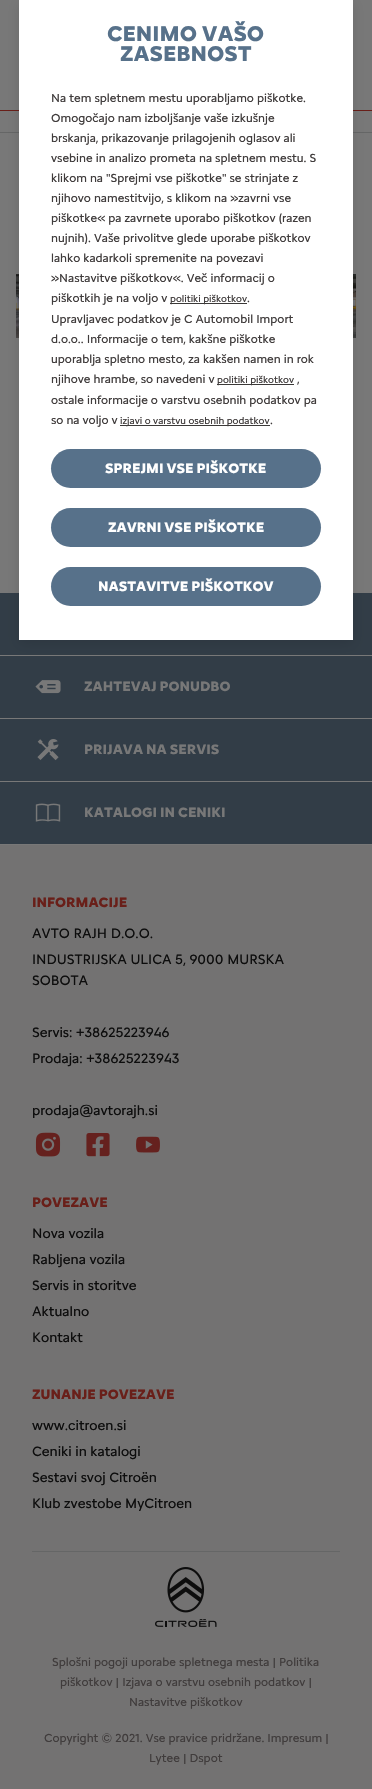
#include "include/core/SkBlurTypes.h"
#include "include/core/SkCanvas.h"
#include "include/core/SkData.h"
#include "include/core/SkFont.h"
#include "include/core/SkFontMgr.h"
#include "include/core/SkImage.h"
#include "include/core/SkMaskFilter.h"
#include "include/core/SkPaint.h"
#include "include/core/SkPathBuilder.h"
#include "include/core/SkTextBlob.h"
#include "include/effects/SkDashPathEffect.h"
#include "include/effects/SkGradientShader.h"
#include "include/utils/SkParsePath.h"

extern sk_sp<SkFontMgr> fontMgr;

void draw(SkCanvas* canvas) {
  SkPaint p;
  p.setAntiAlias(true);
  canvas->clear(SkColorSetRGB(120, 120, 120));
  p.setColor(SkColorSetRGB(105, 31, 25));
  canvas->drawRect(SkRect::MakeLTRB(0, 110, 372, 111), p);
  p.setColor(SkColorSetRGB(101, 102, 102));
  canvas->drawRect(SkRect::MakeLTRB(0, 132, 372, 133), p);
  canvas->drawImageRect(SkImages::DeferredFromEncodedData(SkData::MakeFromFileName("images/1.png")), SkRect::MakeLTRB(16, 274, 356, 338), SkSamplingOptions());
  p.setColor(SkColorSetRGB(50, 61, 71));
  canvas->drawRect(SkRect::MakeLTRB(0, 593, 372, 844), p);
  p.setColor(SkColorSetRGB(120, 120, 120));
  canvas->drawRect(SkRect::MakeLTRB(0, 655, 372, 656), p);
  p.setColor(SkColorSetARGB(26, 0, 0, 0));
  p.setMaskFilter(SkMaskFilter::MakeBlur(kNormal_SkBlurStyle, 6));
  canvas->drawRect(SkRect::MakeLTRB(19, 4, 353, 644), p);
  p.setMaskFilter(nullptr);
  p.setColor(SK_ColorWHITE);
  canvas->drawRect(SkRect::MakeLTRB(19, 0, 353, 640), p);
  p.setColor(SkColorSetRGB(59, 57, 56));
  canvas->drawRect(SkRect::MakeLTRB(170, 303, 247, 304), p);
  canvas->drawRect(SkRect::MakeLTRB(217, 384, 294, 385), p);
  canvas->drawRect(SkRect::MakeLTRB(120, 425, 270, 426), p);
  p.setColor(SkColorSetRGB(87, 113, 138));
  canvas->drawRoundRect(SkRect::MakeLTRB(51, 449, 321, 488), 19.5f, 19.5f, p);
  canvas->drawRoundRect(SkRect::MakeLTRB(51, 508, 321, 547), 19.5f, 19.5f, p);
  canvas->drawRoundRect(SkRect::MakeLTRB(51, 567, 321, 606), 19.5f, 19.5f, p);
  p.setColor(SkColorSetRGB(115, 114, 114));
  canvas->drawRect(SkRect::MakeLTRB(0, 845, 372, 1789), p);
  canvas->drawImageRect(SkImages::DeferredFromEncodedData(SkData::MakeFromFileName("images/2.png")), SkRect::MakeLTRB(35, 680, 61, 694), SkSamplingOptions());
  p.setColor(SkColorSetRGB(120, 120, 120));
  canvas->drawRect(SkRect::MakeLTRB(0, 718, 372, 719), p);
  canvas->drawImageRect(SkImages::DeferredFromEncodedData(SkData::MakeFromFileName("images/3.png")), SkRect::MakeLTRB(37, 739, 59, 761), SkSamplingOptions());
  canvas->drawRect(SkRect::MakeLTRB(0, 781, 372, 782), p);
  canvas->drawImageRect(SkImages::DeferredFromEncodedData(SkData::MakeFromFileName("images/4.png")), SkRect::MakeLTRB(35, 803, 61, 822), SkSamplingOptions());
  canvas->drawImageRect(SkImages::DeferredFromEncodedData(SkData::MakeFromFileName("images/5.png")), SkRect::MakeLTRB(35, 1132, 61, 1157), SkSamplingOptions());
  canvas->drawImageRect(SkImages::DeferredFromEncodedData(SkData::MakeFromFileName("images/6.png")), SkRect::MakeLTRB(86, 1133, 110, 1157), SkSamplingOptions());
  canvas->drawImageRect(SkImages::DeferredFromEncodedData(SkData::MakeFromFileName("images/7.png")), SkRect::MakeLTRB(136, 1136, 160, 1153), SkSamplingOptions());
  p.setColor(SkColorSetRGB(101, 102, 102));
  canvas->drawRect(SkRect::MakeLTRB(32, 1551, 340, 1552), p);
  canvas->drawImageRect(SkImages::DeferredFromEncodedData(SkData::MakeFromFileName("images/8.png")), SkRect::MakeLTRB(155, 1567, 217, 1627), SkSamplingOptions());
  SkFont font1(fontMgr->matchFamilyStyle("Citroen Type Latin", SkFontStyle::Bold()), 22);
  font1.setSubpixel(true);
  p.setColor(SkColorSetRGB(87, 113, 138));
  canvas->drawString("CENIMO VAŠO", 107, 41, font1, p);
  canvas->drawString("ZASEBNOST", 120, 61, font1, p);
  SkFont font2(fontMgr->matchFamilyStyle("Citroen Type Latin", SkFontStyle::Normal()), 12);
  font2.setSubpixel(true);
  p.setColor(SkColorSetRGB(64, 60, 60));
  canvas->drawString("Na tem spletnem mestu uporabljamo piškotke.", 51, 102, font2, p);
  canvas->drawString("Omogočajo nam izboljšanje vaše izkušnje", 51, 122, font2, p);
  canvas->drawString("brskanja, prikazovanje prilagojenih oglasov ali", 51, 142, font2, p);
  canvas->drawString("vsebine in analizo prometa na spletnem mestu. S", 51, 162, font2, p);
  canvas->drawString("klikom na \"Sprejmi vse piškotke\" se strinjate z", 51, 182, font2, p);
  canvas->drawString("njihovo namestitvijo, s klikom na »zavrni vse", 51, 202, font2, p);
  canvas->drawString("piškotke« pa zavrnete uporabo piškotkov (razen", 51, 222, font2, p);
  canvas->drawString("nujnih). Vaše privolitve glede uporabe piškotkov", 51, 242, font2, p);
  canvas->drawString("lahko kadarkoli spremenite na povezavi", 51, 262, font2, p);
  canvas->drawString("»Nastavitve piškotkov«. Več informacij o", 51, 282, font2, p);
  canvas->drawString("piškotkih je na voljo v", 51, 302, font2, p);
  SkFont font3(fontMgr->matchFamilyStyle("Citroen Type Latin", SkFontStyle::Normal()), 10);
  font3.setSubpixel(true);
  canvas->drawString("politiki piškotkov", 170, 302, font3, p);
  canvas->drawString(".", 247, 302, font2, p);
  canvas->drawString("Upravljavec podatkov je C Automobil Import", 51, 323, font2, p);
  canvas->drawString("d.o.o.. Informacije o tem, kakšne piškotke", 51, 343, font2, p);
  canvas->drawString("uporablja spletno mesto, za kakšen namen in rok", 51, 363, font2, p);
  canvas->drawString("njihove hrambe, so navedeni v", 51, 383, font2, p);
  canvas->drawString("politiki piškotkov", 217, 383, font3, p);
  canvas->drawString(",", 297, 383, font2, p);
  canvas->drawString("ostale informacije o varstvu osebnih podatkov pa", 51, 404, font2, p);
  canvas->drawString("so na voljo v", 51, 424, font2, p);
  canvas->drawString("izjavi o varstvu osebnih podatkov", 120, 424, font3, p);
  canvas->drawString(".", 270, 424, font2, p);
  SkFont font4(fontMgr->matchFamilyStyle("Citroen Type Latin", SkFontStyle::Bold()), 14);
  font4.setSubpixel(true);
  p.setColor(SK_ColorWHITE);
  canvas->drawString("SPREJMI VSE PIŠKOTKE", 105, 473, font4, p);
  canvas->drawString("ZAVRNI VSE PIŠKOTKE", 108, 532, font4, p);
  canvas->drawString("NASTAVITVE PIŠKOTKOV", 98, 591, font4, p);
  p.setColor(SkColorSetRGB(120, 120, 120));
  canvas->drawString("ZAHTEVAJ PONUDBO", 84, 691, font4, p);
  canvas->drawString("PRIJAVA NA SERVIS", 84, 754, font4, p);
  canvas->drawString("KATALOGI IN CENIKI", 84, 817, font4, p);
  p.setColor(SkColorSetRGB(105, 31, 25));
  canvas->drawString("INFORMACIJE", 32, 907, font4, p);
  SkFont font5(fontMgr->matchFamilyStyle("Citroen Type Latin", SkFontStyle::Normal()), 14);
  font5.setSubpixel(true);
  p.setColor(SkColorSetRGB(13, 13, 13));
  canvas->drawString("AVTO RAJH D.O.O.", 32, 938, font5, p);
  canvas->drawString("INDUSTRIJSKA ULICA 5, 9000 MURSKA", 32, 964, font5, p);
  canvas->drawString("SOBOTA", 32, 985, font5, p);
  canvas->drawString("Servis: +38625223946", 32, 1037, font5, p);
  canvas->drawString("Prodaja: +38625223943", 32, 1063, font5, p);
  canvas->drawString("prodaja@avtorajh.si", 32, 1115, font5, p);
  p.setColor(SkColorSetRGB(105, 31, 25));
  canvas->drawString("POVEZAVE", 32, 1207, font4, p);
  p.setColor(SkColorSetRGB(13, 13, 13));
  canvas->drawString("Nova vozila", 32, 1238, font5, p);
  canvas->drawString("Rabljena vozila", 32, 1264, font5, p);
  canvas->drawString("Servis in storitve", 32, 1290, font5, p);
  canvas->drawString("Aktualno", 32, 1316, font5, p);
  canvas->drawString("Kontakt", 32, 1342, font5, p);
  p.setColor(SkColorSetRGB(105, 31, 25));
  canvas->drawString("ZUNANJE POVEZAVE", 32, 1399, font4, p);
  p.setColor(SkColorSetRGB(13, 13, 13));
  canvas->drawString("www.citroen.si", 32, 1430, font5, p);
  canvas->drawString("Ceniki in katalogi", 32, 1456, font5, p);
  canvas->drawString("Sestavi svoj Citroën", 32, 1482, font5, p);
  canvas->drawString("Klub zvestobe MyCitroen", 32, 1508, font5, p);
  p.setColor(SkColorSetRGB(64, 60, 60));
  canvas->drawString("Splošni pogoji uporabe spletnega mesta | Politika", 52, 1666, font2, p);
  canvas->drawString("piškotkov | Izjava o varstvu osebnih podatkov |", 60, 1686, font2, p);
  canvas->drawString("Nastavitve piškotkov", 129, 1706, font2, p);
  canvas->drawString("Copyright © 2021. Vse pravice pridržane. Impresum |", 44, 1742, font2, p);
  canvas->drawString("Lytee | Dspot", 149, 1762, font2, p);
}
